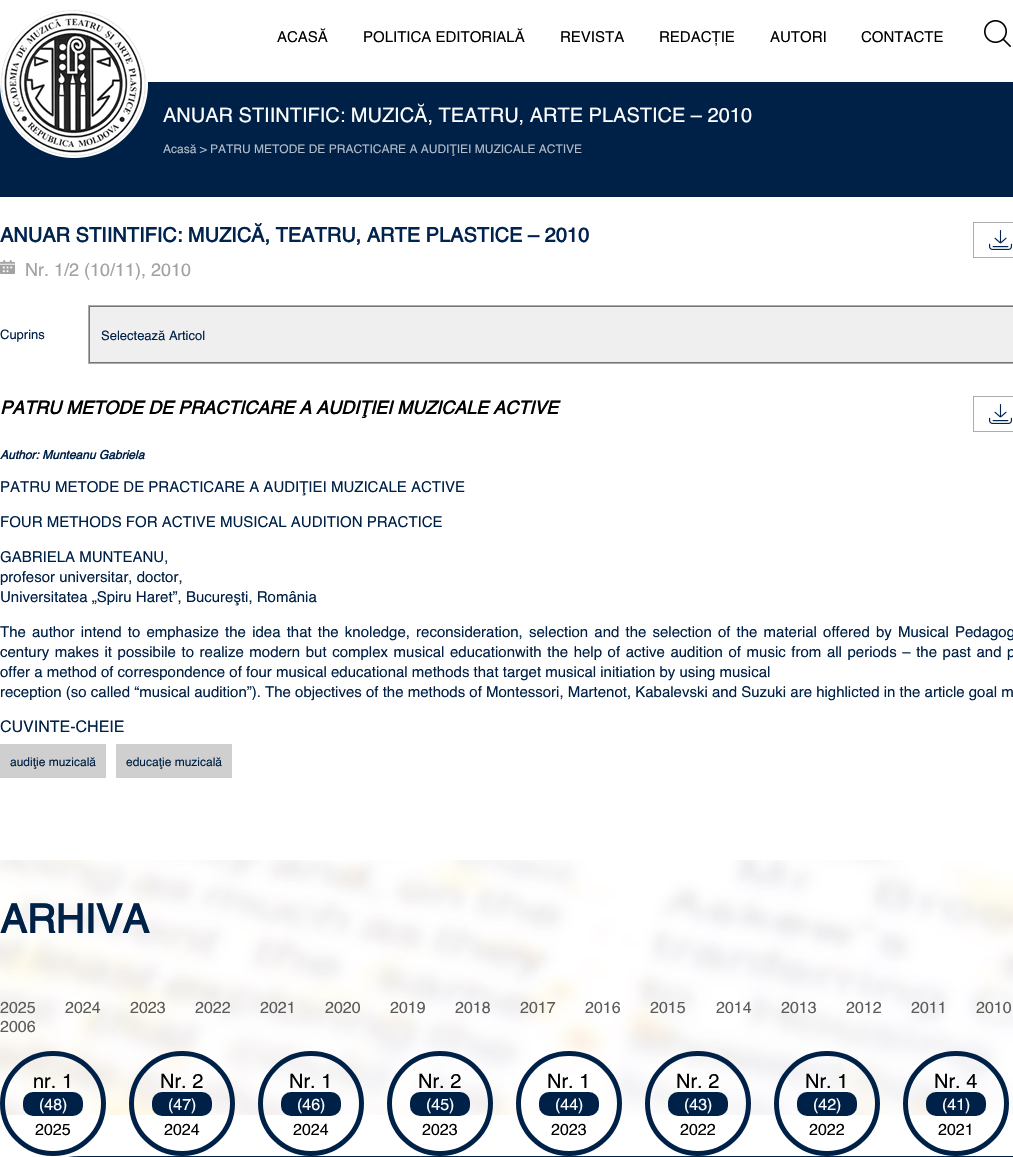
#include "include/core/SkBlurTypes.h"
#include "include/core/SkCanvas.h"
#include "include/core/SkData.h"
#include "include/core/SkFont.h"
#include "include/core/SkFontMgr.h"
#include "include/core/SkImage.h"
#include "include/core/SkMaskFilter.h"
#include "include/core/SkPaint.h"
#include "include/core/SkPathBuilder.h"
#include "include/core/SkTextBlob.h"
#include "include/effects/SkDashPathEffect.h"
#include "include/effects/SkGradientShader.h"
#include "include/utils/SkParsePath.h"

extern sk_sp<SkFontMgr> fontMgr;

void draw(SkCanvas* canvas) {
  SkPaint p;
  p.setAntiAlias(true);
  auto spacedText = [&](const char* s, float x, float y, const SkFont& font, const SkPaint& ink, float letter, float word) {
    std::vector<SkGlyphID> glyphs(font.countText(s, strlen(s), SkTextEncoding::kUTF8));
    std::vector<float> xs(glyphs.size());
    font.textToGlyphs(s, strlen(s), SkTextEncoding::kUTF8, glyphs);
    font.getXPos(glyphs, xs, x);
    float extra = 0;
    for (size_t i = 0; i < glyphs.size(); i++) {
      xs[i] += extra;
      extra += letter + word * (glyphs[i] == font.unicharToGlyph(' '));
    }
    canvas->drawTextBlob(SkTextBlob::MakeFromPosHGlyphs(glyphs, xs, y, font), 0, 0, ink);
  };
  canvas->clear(SK_ColorWHITE);
  p.setColor(SkColorSetRGB(0, 33, 71));
  canvas->drawRect(SkRect::MakeLTRB(0, 82, 1013, 197), p);
  canvas->drawImageRect(SkImages::DeferredFromEncodedData(SkData::MakeFromFileName("images/1.png")), SkRect::MakeLTRB(0, 10, 148, 158), SkSamplingOptions());
  canvas->drawImageRect(SkImages::DeferredFromEncodedData(SkData::MakeFromFileName("images/2.png")), SkRect::MakeLTRB(984, 20, 1011, 47), SkSamplingOptions());
  canvas->drawImageRect(SkImages::DeferredFromEncodedData(SkData::MakeFromFileName("images/3.png")), SkRect::MakeLTRB(989, 230, 1012, 250), SkSamplingOptions());
  p.setStyle(SkPaint::kStroke_Style);
  p.setStrokeWidth(1);
  p.setColor(SkColorSetRGB(172, 172, 172));
  canvas->drawRect(SkRect::MakeLTRB(973.5f, 222.5f, 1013.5f, 257.5f), p);
  canvas->drawImageRect(SkImages::DeferredFromEncodedData(SkData::MakeFromFileName("images/4.png")), SkRect::MakeLTRB(0, 260, 15, 274), SkSamplingOptions());
  canvas->drawRect(SkRect::MakeLTRB(88.5f, 305.5f, 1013.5f, 363.5f), p);
  p.setStyle(SkPaint::kFill_Style);
  p.setColor(SkColorSetRGB(239, 239, 239));
  canvas->drawRect(SkRect::MakeLTRB(89.5f, 306.5f, 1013.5f, 362.5f), p);
  p.setStyle(SkPaint::kStroke_Style);
  p.setColor(SkColorSetRGB(118, 118, 118));
  canvas->drawRect(SkRect::MakeLTRB(89.5f, 306.5f, 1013.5f, 362.5f), p);
  canvas->drawImageRect(SkImages::DeferredFromEncodedData(SkData::MakeFromFileName("images/3.png")), SkRect::MakeLTRB(989, 404, 1012, 424), SkSamplingOptions());
  p.setColor(SkColorSetRGB(172, 172, 172));
  canvas->drawRect(SkRect::MakeLTRB(973.5f, 396.5f, 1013.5f, 431.5f), p);
  p.setStyle(SkPaint::kFill_Style);
  p.setColor(SkColorSetRGB(207, 207, 207));
  canvas->drawRect(SkRect::MakeLTRB(0, 744, 106, 778), p);
  canvas->drawRect(SkRect::MakeLTRB(116, 744, 232, 778), p);
  canvas->drawImageRect(SkImages::DeferredFromEncodedData(SkData::MakeFromFileName("images/5.png")), SkRect::MakeLTRB(0, 860, 1013, 1115), SkSamplingOptions());
  p.setStyle(SkPaint::kStroke_Style);
  p.setStrokeWidth(5);
  p.setColor(SkColorSetRGB(0, 33, 71));
  canvas->drawRoundRect(SkRect::MakeLTRB(2.5f, 1053.5f, 103.5f, 1153.5f), 50, 50, p);
  p.setStyle(SkPaint::kFill_Style);
  canvas->drawRoundRect(SkRect::MakeLTRB(23, 1092, 83, 1116), 10, 10, p);
  p.setStyle(SkPaint::kStroke_Style);
  canvas->drawRoundRect(SkRect::MakeLTRB(131.5f, 1053.5f, 232.5f, 1153.5f), 50, 50, p);
  p.setStyle(SkPaint::kFill_Style);
  canvas->drawRoundRect(SkRect::MakeLTRB(152, 1092, 212, 1116), 10, 10, p);
  p.setStyle(SkPaint::kStroke_Style);
  canvas->drawRoundRect(SkRect::MakeLTRB(260.5f, 1053.5f, 361.5f, 1153.5f), 50, 50, p);
  p.setStyle(SkPaint::kFill_Style);
  canvas->drawRoundRect(SkRect::MakeLTRB(281, 1092, 341, 1116), 10, 10, p);
  p.setStyle(SkPaint::kStroke_Style);
  canvas->drawRoundRect(SkRect::MakeLTRB(389.5f, 1053.5f, 490.5f, 1153.5f), 50, 50, p);
  p.setStyle(SkPaint::kFill_Style);
  canvas->drawRoundRect(SkRect::MakeLTRB(410, 1092, 470, 1116), 10, 10, p);
  p.setStyle(SkPaint::kStroke_Style);
  canvas->drawRoundRect(SkRect::MakeLTRB(518.5f, 1053.5f, 619.5f, 1153.5f), 50, 50, p);
  p.setStyle(SkPaint::kFill_Style);
  canvas->drawRoundRect(SkRect::MakeLTRB(539, 1092, 599, 1116), 10, 10, p);
  p.setStyle(SkPaint::kStroke_Style);
  canvas->drawRoundRect(SkRect::MakeLTRB(647.5f, 1053.5f, 748.5f, 1153.5f), 50, 50, p);
  p.setStyle(SkPaint::kFill_Style);
  canvas->drawRoundRect(SkRect::MakeLTRB(668, 1092, 728, 1116), 10, 10, p);
  p.setStyle(SkPaint::kStroke_Style);
  canvas->drawRoundRect(SkRect::MakeLTRB(776.5f, 1053.5f, 877.5f, 1153.5f), 50, 50, p);
  p.setStyle(SkPaint::kFill_Style);
  canvas->drawRoundRect(SkRect::MakeLTRB(797, 1092, 857, 1116), 10, 10, p);
  p.setStyle(SkPaint::kStroke_Style);
  canvas->drawRoundRect(SkRect::MakeLTRB(905.5f, 1053.5f, 1006.5f, 1153.5f), 50, 50, p);
  p.setStyle(SkPaint::kFill_Style);
  canvas->drawRoundRect(SkRect::MakeLTRB(926, 1092, 986, 1116), 10, 10, p);
  canvas->drawPath(SkPathBuilder().moveTo(80, 1156).lineTo(1013, 1156).cubicTo(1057, 1156, 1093, 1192, 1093, 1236).lineTo(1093, 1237).lineTo(0, 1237).lineTo(0, 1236).cubicTo(0, 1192, 36, 1156, 80, 1156).close().detach(), p);
  SkFont font1(fontMgr->matchFamilyStyle("Helvetica", SkFontStyle::Normal()), 15);
  font1.setSubpixel(true);
  p.setColor(SK_ColorBLACK);
  canvas->drawString("ACASĂ", 277, 42, font1, p);
  canvas->drawString("POLITICA EDITORIALĂ", 363, 42, font1, p);
  canvas->drawString("REVISTA", 560, 42, font1, p);
  canvas->drawString("REDACȚIE", 659, 42, font1, p);
  canvas->drawString("AUTORI", 770, 42, font1, p);
  canvas->drawString("CONTACTE", 861, 42, font1, p);
  SkFont font2(fontMgr->matchFamilyStyle("Helvetica", SkFontStyle::Normal()), 20);
  font2.setSubpixel(true);
  p.setColor(SK_ColorWHITE);
  canvas->drawString("ANUAR STIINTIFIC: MUZICĂ, TEATRU, ARTE PLASTICE – 2010", 163, 122, font2, p);
  SkFont font3(fontMgr->matchFamilyStyle("Helvetica", SkFontStyle::Normal()), 12);
  font3.setSubpixel(true);
  p.setColor(SkColorSetRGB(179, 188, 200));
  canvas->drawString("Acasă > PATRU METODE DE PRACTICARE A AUDIŢIEI MUZICALE ACTIVE", 163, 153, font3, p);
  SkFont font4(fontMgr->matchFamilyStyle("Helvetica", SkFontStyle::Bold()), 20);
  font4.setSubpixel(true);
  p.setColor(SkColorSetRGB(0, 36, 78));
  canvas->drawString("ANUAR STIINTIFIC: MUZICĂ, TEATRU, ARTE PLASTICE – 2010", 0, 242, font4, p);
  SkFont font5(fontMgr->matchFamilyStyle("Helvetica", SkFontStyle::Normal()), 18);
  font5.setSubpixel(true);
  p.setColor(SkColorSetRGB(162, 162, 162));
  canvas->drawString("Nr. 1/2 (10/11), 2010", 25, 276, font5, p);
  SkFont font6(fontMgr->matchFamilyStyle("Helvetica", SkFontStyle::Normal()), 13);
  font6.setSubpixel(true);
  p.setColor(SkColorSetRGB(0, 33, 71));
  canvas->drawString("Cuprins", 0, 339, font6, p);
  canvas->drawString("Selectează Articol", 101, 340, font6, p);
  SkFont font7(fontMgr->matchFamilyStyle("Helvetica", SkFontStyle::BoldItalic()), 18);
  font7.setSubpixel(true);
  p.setColor(SK_ColorBLACK);
  canvas->drawString("PATRU METODE DE PRACTICARE A AUDIŢIEI MUZICALE ACTIVE", 0, 414, font7, p);
  SkFont font8(fontMgr->matchFamilyStyle("Helvetica", SkFontStyle::BoldItalic()), 12);
  font8.setSubpixel(true);
  p.setColor(SkColorSetRGB(0, 33, 71));
  canvas->drawString("Author: Munteanu Gabriela", 0, 459, font8, p);
  canvas->drawString("PATRU METODE DE PRACTICARE A AUDIŢIEI MUZICALE ACTIVE", 0, 492, font1, p);
  canvas->drawString("FOUR METHODS FOR ACTIVE MUSICAL AUDITION PRACTICE", 0, 527, font1, p);
  canvas->drawString("GABRIELA MUNTEANU,", 0, 562, font1, p);
  canvas->drawString("profesor universitar, doctor,", 0, 582, font1, p);
  canvas->drawString("Universitatea „Spiru Haret”, Bucureşti, România", 0, 602, font1, p);
  spacedText("The author intend to emphasize the idea that the knoledge, reconsideration, selection and the selection of the material offered by Musical Pedagog", 0, 637, font1, p, 0, 2);
  spacedText("century makes it possibile to realize modern but complex musical educationwith the help of active audition of music from all periods – the past and p", 0, 657, font1, p, 0, 1.4f);
  canvas->drawString("offer a method of correspondence of four musical educational methods that target musical initiation by using musical", 0, 677, font1, p);
  canvas->drawString("reception (so called “musical audition”). The objectives of the methods of Montessori, Martenot, Kabalevski and Suzuki are highlicted in the article goal m", 0, 697, font1, p);
  SkFont font9(fontMgr->matchFamilyStyle("Helvetica", SkFontStyle::Normal()), 16);
  font9.setSubpixel(true);
  canvas->drawString("CUVINTE-CHEIE", 0, 732, font9, p);
  canvas->drawString("audiţie muzicală", 10, 766, font3, p);
  canvas->drawString("educaţie muzicală", 126, 766, font3, p);
  SkFont font10(fontMgr->matchFamilyStyle("Helvetica", SkFontStyle::Bold()), 40);
  font10.setSubpixel(true);
  canvas->drawString("ARHIVA", 0, 933, font10, p);
  p.setColor(SkColorSetRGB(92, 92, 92));
  canvas->drawString("2025", 0, 1013, font9, p);
  canvas->drawString("2024", 65, 1013, font9, p);
  canvas->drawString("2023", 130, 1013, font9, p);
  canvas->drawString("2022", 195, 1013, font9, p);
  canvas->drawString("2021", 260, 1013, font9, p);
  canvas->drawString("2020", 325, 1013, font9, p);
  canvas->drawString("2019", 390, 1013, font9, p);
  canvas->drawString("2018", 455, 1013, font9, p);
  canvas->drawString("2017", 520, 1013, font9, p);
  canvas->drawString("2016", 585, 1013, font9, p);
  canvas->drawString("2015", 650, 1013, font9, p);
  canvas->drawString("2014", 716, 1013, font9, p);
  canvas->drawString("2013", 781, 1013, font9, p);
  canvas->drawString("2012", 846, 1013, font9, p);
  canvas->drawString("2011", 911, 1013, font9, p);
  canvas->drawString("2010", 976, 1013, font9, p);
  canvas->drawString("2006", 0, 1032, font9, p);
  p.setColor(SK_ColorBLACK);
  canvas->drawString("nr. 1", 33, 1088, font2, p);
  p.setColor(SK_ColorWHITE);
  canvas->drawString("(48)", 39, 1110, font9, p);
  p.setColor(SK_ColorBLACK);
  canvas->drawString("2025", 35, 1135, font9, p);
  canvas->drawString("Nr. 2", 160, 1088, font2, p);
  p.setColor(SK_ColorWHITE);
  canvas->drawString("(47)", 168, 1110, font9, p);
  p.setColor(SK_ColorBLACK);
  canvas->drawString("2024", 164, 1135, font9, p);
  canvas->drawString("Nr. 1", 289, 1088, font2, p);
  p.setColor(SK_ColorWHITE);
  canvas->drawString("(46)", 297, 1110, font9, p);
  p.setColor(SK_ColorBLACK);
  canvas->drawString("2024", 293, 1135, font9, p);
  canvas->drawString("Nr. 2", 418, 1088, font2, p);
  p.setColor(SK_ColorWHITE);
  canvas->drawString("(45)", 426, 1110, font9, p);
  p.setColor(SK_ColorBLACK);
  canvas->drawString("2023", 422, 1135, font9, p);
  canvas->drawString("Nr. 1", 547, 1088, font2, p);
  p.setColor(SK_ColorWHITE);
  canvas->drawString("(44)", 555, 1110, font9, p);
  p.setColor(SK_ColorBLACK);
  canvas->drawString("2023", 551, 1135, font9, p);
  canvas->drawString("Nr. 2", 676, 1088, font2, p);
  p.setColor(SK_ColorWHITE);
  canvas->drawString("(43)", 684, 1110, font9, p);
  p.setColor(SK_ColorBLACK);
  canvas->drawString("2022", 680, 1135, font9, p);
  canvas->drawString("Nr. 1", 805, 1088, font2, p);
  p.setColor(SK_ColorWHITE);
  canvas->drawString("(42)", 813, 1110, font9, p);
  p.setColor(SK_ColorBLACK);
  canvas->drawString("2022", 809, 1135, font9, p);
  canvas->drawString("Nr. 4", 934, 1088, font2, p);
  p.setColor(SK_ColorWHITE);
  canvas->drawString("(41)", 942, 1110, font9, p);
  p.setColor(SK_ColorBLACK);
  canvas->drawString("2021", 938, 1135, font9, p);
}
